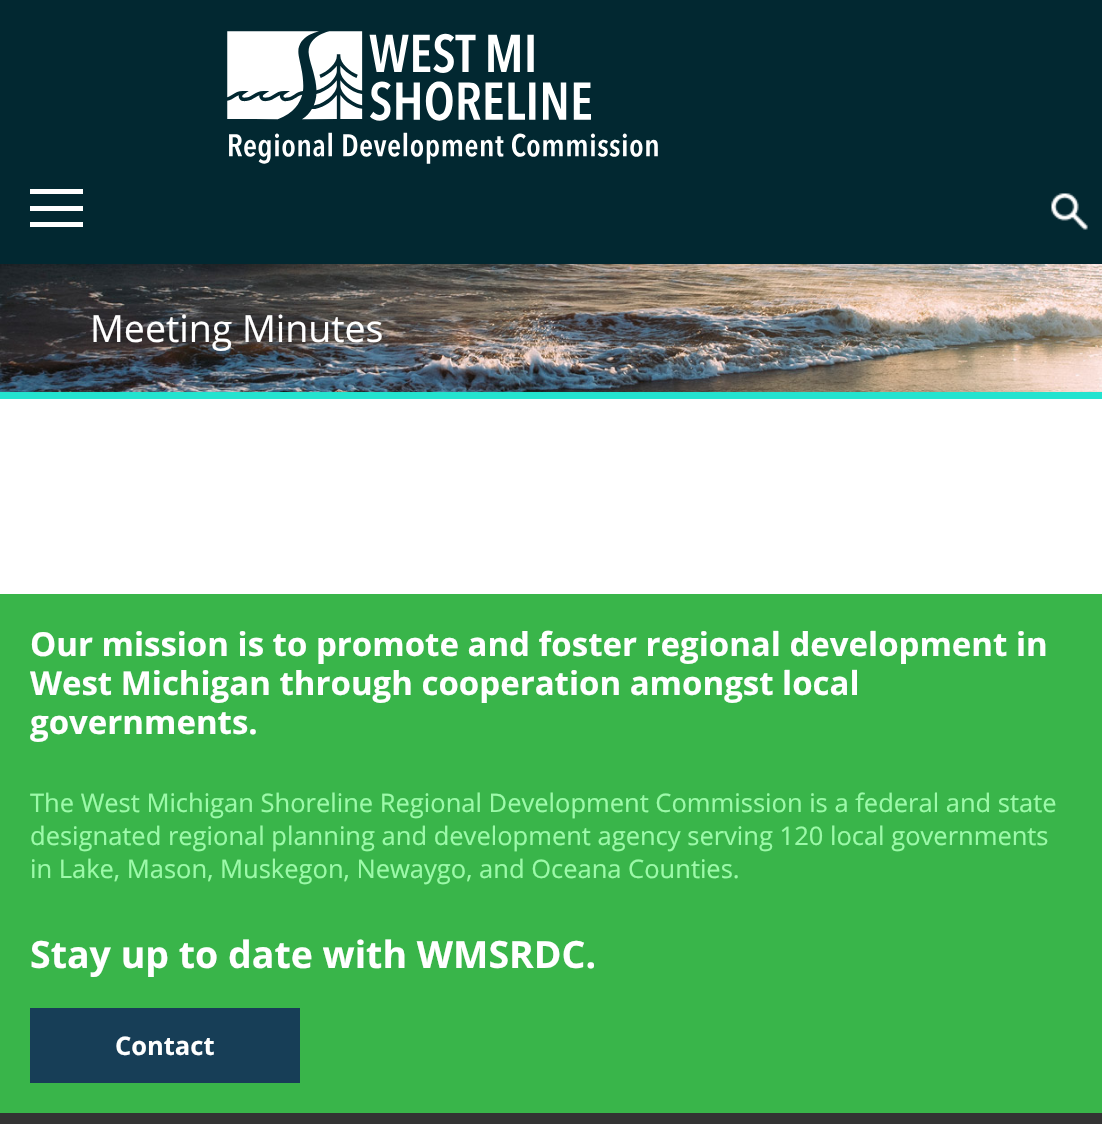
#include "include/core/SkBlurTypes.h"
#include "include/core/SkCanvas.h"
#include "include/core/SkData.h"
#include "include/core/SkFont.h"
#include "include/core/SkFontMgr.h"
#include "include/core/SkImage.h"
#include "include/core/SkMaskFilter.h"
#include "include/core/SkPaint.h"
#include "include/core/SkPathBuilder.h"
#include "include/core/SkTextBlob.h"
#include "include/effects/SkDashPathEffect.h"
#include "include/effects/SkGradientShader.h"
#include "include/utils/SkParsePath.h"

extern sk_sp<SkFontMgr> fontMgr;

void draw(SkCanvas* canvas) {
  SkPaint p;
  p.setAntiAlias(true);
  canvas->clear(SK_ColorWHITE);
  p.setColor(SkColorSetRGB(2, 40, 49));
  canvas->drawRect(SkRect::MakeLTRB(0, 0, 1102, 264), p);
  canvas->drawImageRect(SkImages::DeferredFromEncodedData(SkData::MakeFromFileName("images/1.png")), SkRect::MakeLTRB(227, 31, 658, 164), SkSamplingOptions());
  p.setColor(SK_ColorWHITE);
  canvas->drawRect(SkRect::MakeLTRB(30, 189, 83, 194), p);
  canvas->drawRect(SkRect::MakeLTRB(30, 206, 83, 211), p);
  canvas->drawRect(SkRect::MakeLTRB(30, 222, 83, 227), p);
  canvas->drawImageRect(SkImages::DeferredFromEncodedData(SkData::MakeFromFileName("images/2.png")), SkRect::MakeLTRB(1051, 193, 1088, 230), SkSamplingOptions());
  canvas->drawImageRect(SkImages::DeferredFromEncodedData(SkData::MakeFromFileName("images/3.png")), SkRect::MakeLTRB(0, 264, 1102, 392), SkSamplingOptions());
  p.setColor(SkColorSetRGB(35, 227, 207));
  canvas->drawRect(SkRect::MakeLTRB(0, 392, 1102, 399), p);
  p.setColor(SkColorSetRGB(57, 181, 74));
  canvas->drawRect(SkRect::MakeLTRB(0, 594, 1102, 1113), p);
  p.setColor(SkColorSetRGB(23, 62, 87));
  canvas->drawRect(SkRect::MakeLTRB(30, 1008, 300, 1083), p);
  p.setColor(SkColorSetRGB(51, 51, 51));
  canvas->drawRect(SkRect::MakeLTRB(0, 1113, 1102, 1124), p);
  SkFont font1(fontMgr->matchFamilyStyle("Open Sans", SkFontStyle::Normal()), 37.5f);
  font1.setSubpixel(true);
  p.setColor(SK_ColorWHITE);
  canvas->drawString("Meeting Minutes", 90, 342, font1, p);
  SkFont font2(fontMgr->matchFamilyStyle("Open Sans", SkFontStyle::Bold()), 33);
  font2.setSubpixel(true);
  canvas->drawString("Our mission is to promote and foster regional development in", 30, 656, font2, p);
  canvas->drawString("West Michigan through cooperation amongst local", 30, 695, font2, p);
  canvas->drawString("governments.", 30, 734, font2, p);
  SkFont font3(fontMgr->matchFamilyStyle("Open Sans", SkFontStyle::Normal()), 25.5f);
  font3.setSubpixel(true);
  p.setColor(SkColorSetRGB(156, 250, 169));
  canvas->drawString("The West Michigan Shoreline Regional Development Commission is a federal and state", 30, 812, font3, p);
  canvas->drawString("designated regional planning and development agency serving 120 local governments", 30, 845, font3, p);
  canvas->drawString("in Lake, Mason, Muskegon, Newaygo, and Oceana Counties.", 30, 878, font3, p);
  SkFont font4(fontMgr->matchFamilyStyle("Open Sans", SkFontStyle::Bold()), 37.5f);
  font4.setSubpixel(true);
  p.setColor(SK_ColorWHITE);
  canvas->drawString("Stay up to date with WMSRDC.", 30, 968, font4, p);
  SkFont font5(fontMgr->matchFamilyStyle("Open Sans", SkFontStyle::Bold()), 25.5f);
  font5.setSubpixel(true);
  canvas->drawString("Contact", 115, 1055, font5, p);
}
